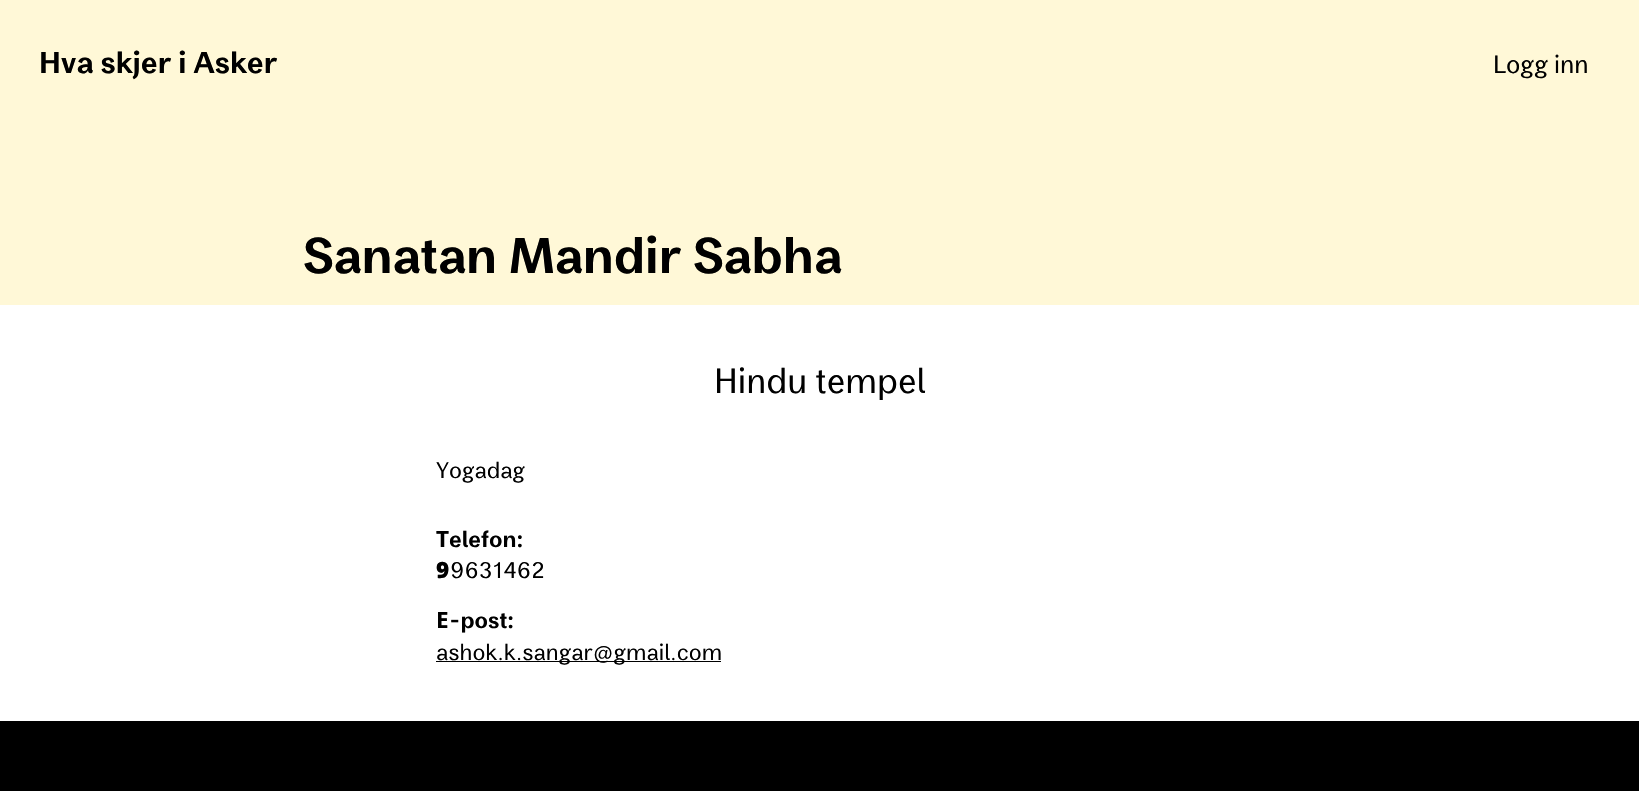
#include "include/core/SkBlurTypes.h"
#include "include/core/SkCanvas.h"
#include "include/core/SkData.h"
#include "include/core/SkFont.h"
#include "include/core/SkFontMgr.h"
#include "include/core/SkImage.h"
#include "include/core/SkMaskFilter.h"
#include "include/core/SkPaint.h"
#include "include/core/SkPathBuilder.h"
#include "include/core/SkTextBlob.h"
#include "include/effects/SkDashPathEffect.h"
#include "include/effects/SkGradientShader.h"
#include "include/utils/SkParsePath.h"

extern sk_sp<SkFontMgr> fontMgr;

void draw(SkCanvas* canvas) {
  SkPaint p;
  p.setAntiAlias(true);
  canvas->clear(SK_ColorWHITE);
  p.setColor(SkColorSetRGB(255, 248, 215));
  canvas->drawRect(SkRect::MakeLTRB(0, 0, 1639, 305), p);
  p.setColor(SK_ColorBLACK);
  canvas->drawRect(SkRect::MakeLTRB(436, 661, 721, 662), p);
  canvas->drawRect(SkRect::MakeLTRB(0, 721, 1639, 791), p);
  SkFont font1(fontMgr->matchFamilyStyle("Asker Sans", SkFontStyle::Bold()), 30);
  font1.setSubpixel(true);
  canvas->drawString("Hva skjer i Asker", 39, 73, font1, p);
  SkFont font2(fontMgr->matchFamilyStyle("Asker Sans", SkFontStyle::Normal()), 25);
  font2.setSubpixel(true);
  canvas->drawString("Logg inn", 1493, 73, font2, p);
  SkFont font3(fontMgr->matchFamilyStyle("Asker Sans", SkFontStyle::Bold()), 50);
  font3.setSubpixel(true);
  canvas->drawString("Sanatan Mandir Sabha", 303, 273, font3, p);
  SkFont font4(fontMgr->matchFamilyStyle("Asker Sans", SkFontStyle::Normal()), 35);
  font4.setSubpixel(true);
  canvas->drawString("Hindu tempel", 714, 393, font4, p);
  SkFont font5(fontMgr->matchFamilyStyle("Asker Sans", SkFontStyle::Normal()), 22.5f);
  font5.setSubpixel(true);
  canvas->drawString("Yogadag", 436, 478, font5, p);
  SkFont font6(fontMgr->matchFamilyStyle("Noto Sans", SkFontStyle::Bold()), 22.5f);
  font6.setSubpixel(true);
  canvas->drawString("T", 436, 547, font6, p);
  SkFont font7(fontMgr->matchFamilyStyle("Asker Sans", SkFontStyle::Bold()), 22.5f);
  font7.setSubpixel(true);
  canvas->drawString("elefon:", 449, 547, font7, p);
  SkFont font8(fontMgr->matchFamilyStyle("Noto Sans", SkFontStyle(900, SkFontStyle::kNormal_Width, SkFontStyle::kUpright_Slant)), 22.5f);
  font8.setSubpixel(true);
  canvas->drawString("9", 436, 578, font8, p);
  canvas->drawString("9631462", 450, 578, font5, p);
  canvas->drawString("E", 436, 628, font6, p);
  canvas->drawString("-post:", 449, 628, font7, p);
  canvas->drawString("ashok.k.sangar@gmail.com", 436, 660, font5, p);
}
